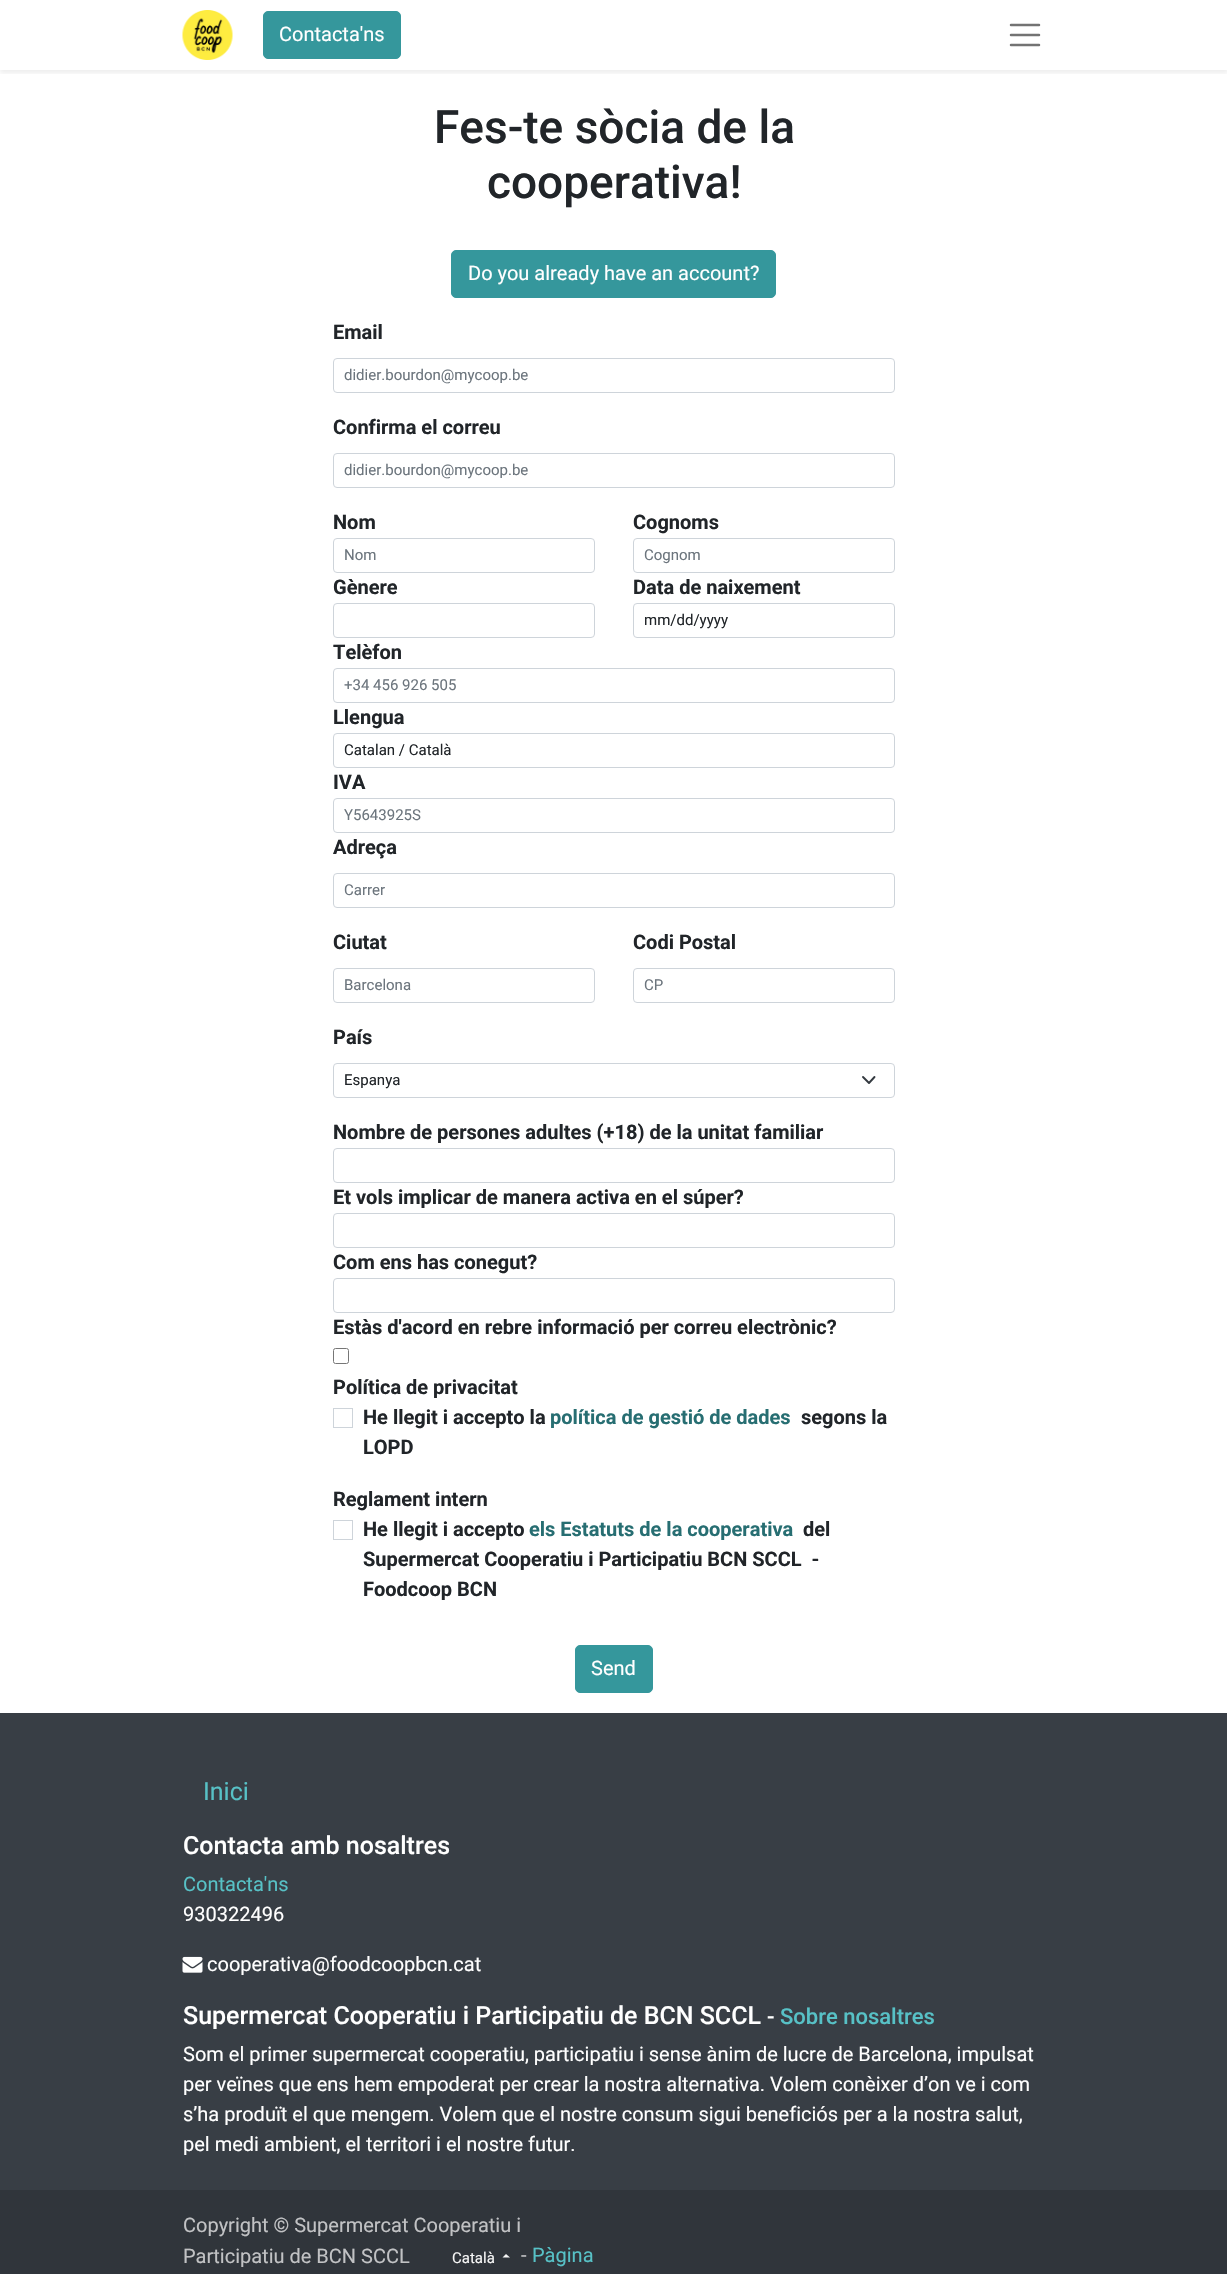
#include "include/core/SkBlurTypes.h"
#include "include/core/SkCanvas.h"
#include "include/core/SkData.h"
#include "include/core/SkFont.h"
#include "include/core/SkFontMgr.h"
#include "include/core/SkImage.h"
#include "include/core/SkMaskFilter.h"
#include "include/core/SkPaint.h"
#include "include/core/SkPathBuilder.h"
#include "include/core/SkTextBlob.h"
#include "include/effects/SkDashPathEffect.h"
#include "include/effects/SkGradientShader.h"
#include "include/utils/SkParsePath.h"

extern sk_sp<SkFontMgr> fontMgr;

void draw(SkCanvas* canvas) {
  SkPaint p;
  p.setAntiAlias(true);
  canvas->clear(SK_ColorWHITE);
  canvas->save();
  canvas->clipRect(SkRect::MakeLTRB(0, 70, 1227, 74));
  p.setColor(SkColorSetARGB(18, 0, 0, 0));
  p.setMaskFilter(SkMaskFilter::MakeBlur(kNormal_SkBlurStyle, 2.5f));
  canvas->drawRect(SkRect::MakeLTRB(0, 3, 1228, 73), p);
  p.setMaskFilter(nullptr);
  canvas->restore();
  canvas->drawImageRect(SkImages::DeferredFromEncodedData(SkData::MakeFromFileName("images/1.png")), SkRect::MakeLTRB(182, 10, 233, 60), SkSamplingOptions());
  p.setColor(SkColorSetRGB(53, 151, 156));
  canvas->drawRoundRect(SkRect::MakeLTRB(263.5f, 11.5f, 400.5f, 58.5f), 4.5f, 4.5f, p);
  p.setStyle(SkPaint::kStroke_Style);
  p.setStrokeWidth(1);
  canvas->drawRoundRect(SkRect::MakeLTRB(263.5f, 11.5f, 400.5f, 58.5f), 4.5f, 4.5f, p);
  p.setStrokeWidth(2.5f);
  p.setStrokeCap(SkPaint::kRound_Cap);
  p.setColor(SkColorSetRGB(115, 115, 115));
  canvas->drawPath(SkPathBuilder().moveTo(1011, 25).lineTo(1039, 25).moveTo(1011, 35).lineTo(1039, 35).moveTo(1011, 45).lineTo(1039, 45).detach(), p);
  p.setStyle(SkPaint::kFill_Style);
  p.setColor(SkColorSetRGB(53, 151, 156));
  canvas->drawRoundRect(SkRect::MakeLTRB(451.5f, 250.5f, 775.5f, 297.5f), 4.5f, 4.5f, p);
  p.setStyle(SkPaint::kStroke_Style);
  p.setStrokeWidth(1);
  p.setStrokeCap(SkPaint::kButt_Cap);
  canvas->drawRoundRect(SkRect::MakeLTRB(451.5f, 250.5f, 775.5f, 297.5f), 4.5f, 4.5f, p);
  p.setColor(SkColorSetRGB(206, 212, 218));
  canvas->drawRoundRect(SkRect::MakeLTRB(333.5f, 358.5f, 894.5f, 392.5f), 3.5f, 3.5f, p);
  canvas->drawRoundRect(SkRect::MakeLTRB(333.5f, 453.5f, 894.5f, 487.5f), 3.5f, 3.5f, p);
  canvas->drawRoundRect(SkRect::MakeLTRB(333.5f, 538.5f, 594.5f, 572.5f), 3.5f, 3.5f, p);
  canvas->drawRoundRect(SkRect::MakeLTRB(633.5f, 538.5f, 894.5f, 572.5f), 3.5f, 3.5f, p);
  canvas->drawRoundRect(SkRect::MakeLTRB(333.5f, 603.5f, 594.5f, 637.5f), 3.5f, 3.5f, p);
  canvas->drawRoundRect(SkRect::MakeLTRB(633.5f, 603.5f, 894.5f, 637.5f), 3.5f, 3.5f, p);
  canvas->drawRoundRect(SkRect::MakeLTRB(333.5f, 668.5f, 894.5f, 702.5f), 3.5f, 3.5f, p);
  canvas->drawRoundRect(SkRect::MakeLTRB(333.5f, 733.5f, 894.5f, 767.5f), 3.5f, 3.5f, p);
  canvas->drawRoundRect(SkRect::MakeLTRB(333.5f, 798.5f, 894.5f, 832.5f), 3.5f, 3.5f, p);
  canvas->drawRoundRect(SkRect::MakeLTRB(333.5f, 873.5f, 894.5f, 907.5f), 3.5f, 3.5f, p);
  canvas->drawRoundRect(SkRect::MakeLTRB(333.5f, 968.5f, 594.5f, 1002.5f), 3.5f, 3.5f, p);
  canvas->drawRoundRect(SkRect::MakeLTRB(633.5f, 968.5f, 894.5f, 1002.5f), 3.5f, 3.5f, p);
  p.setStrokeWidth(1.9f);
  p.setStrokeCap(SkPaint::kRound_Cap);
  p.setStrokeJoin(SkPaint::kRound_Join);
  p.setColor(SkColorSetRGB(52, 58, 64));
  canvas->drawPath(SkPathBuilder().moveTo(863, 1077).lineTo(869, 1083).lineTo(874.5f, 1077).detach(), p);
  p.setStrokeWidth(1);
  p.setStrokeCap(SkPaint::kButt_Cap);
  p.setStrokeJoin(SkPaint::kMiter_Join);
  p.setColor(SkColorSetRGB(206, 212, 218));
  canvas->drawRoundRect(SkRect::MakeLTRB(333.5f, 1063.5f, 894.5f, 1097.5f), 3.5f, 3.5f, p);
  canvas->drawRoundRect(SkRect::MakeLTRB(333.5f, 1148.5f, 894.5f, 1182.5f), 3.5f, 3.5f, p);
  canvas->drawRoundRect(SkRect::MakeLTRB(333.5f, 1213.5f, 894.5f, 1247.5f), 3.5f, 3.5f, p);
  canvas->drawRoundRect(SkRect::MakeLTRB(333.5f, 1278.5f, 894.5f, 1312.5f), 3.5f, 3.5f, p);
  p.setColor(SkColorSetRGB(118, 118, 118));
  canvas->drawRoundRect(SkRect::MakeLTRB(333.5f, 1348.5f, 348.5f, 1363.5f), 2, 2, p);
  p.setColor(SkColorSetRGB(206, 212, 218));
  canvas->drawRect(SkRect::MakeLTRB(333.5f, 1408.5f, 352.5f, 1427.5f), p);
  canvas->drawRect(SkRect::MakeLTRB(333.5f, 1520.5f, 352.5f, 1539.5f), p);
  p.setStyle(SkPaint::kFill_Style);
  p.setColor(SkColorSetRGB(53, 151, 156));
  canvas->drawRoundRect(SkRect::MakeLTRB(575.5f, 1645.5f, 652.5f, 1692.5f), 4.5f, 4.5f, p);
  p.setStyle(SkPaint::kStroke_Style);
  canvas->drawRoundRect(SkRect::MakeLTRB(575.5f, 1645.5f, 652.5f, 1692.5f), 4.5f, 4.5f, p);
  p.setStyle(SkPaint::kFill_Style);
  p.setColor(SkColorSetRGB(56, 62, 69));
  canvas->drawRect(SkRect::MakeLTRB(0, 1713, 1227, 2190), p);
  canvas->drawImageRect(SkImages::DeferredFromEncodedData(SkData::MakeFromFileName("images/2.png")), SkRect::MakeLTRB(182, 1956, 203, 1973), SkSamplingOptions());
  p.setColor(SkColorSetRGB(48, 53, 59));
  canvas->drawRect(SkRect::MakeLTRB(0, 2190, 1227, 2274), p);
  p.setColor(SkColorSetRGB(246, 246, 246));
  canvas->drawPath(SkPathBuilder().moveTo(510, 2257.5f).lineTo(502.5f, 2257.5f).lineTo(506, 2254).close().detach(), p);
  SkFont font1(fontMgr->matchFamilyStyle("Roboto", SkFontStyle::Normal()), 20);
  font1.setSubpixel(true);
  p.setColor(SK_ColorWHITE);
  canvas->drawString("Contacta'ns", 279, 41, font1, p);
  SkFont font2(fontMgr->matchFamilyStyle("Roboto", SkFontStyle(500, SkFontStyle::kNormal_Width, SkFontStyle::kUpright_Slant)), 46);
  font2.setSubpixel(true);
  p.setColor(SkColorSetRGB(33, 37, 41));
  canvas->drawString("Fes-te sòcia de la", 434, 143, font2, p);
  canvas->drawString("cooperativa!", 487, 198, font2, p);
  p.setColor(SK_ColorWHITE);
  canvas->drawString("Do you already have an account?", 468, 280, font1, p);
  SkFont font3(fontMgr->matchFamilyStyle("Roboto", SkFontStyle::Bold()), 20);
  font3.setSubpixel(true);
  p.setColor(SkColorSetRGB(33, 37, 41));
  canvas->drawString("Email", 333, 339, font3, p);
  SkFont font4(fontMgr->matchFamilyStyle("Roboto", SkFontStyle::Normal()), 15);
  font4.setSubpixel(true);
  p.setColor(SkColorSetRGB(108, 117, 125));
  canvas->drawString("didier.bourdon@mycoop.be", 344, 380, font4, p);
  p.setColor(SkColorSetRGB(33, 37, 41));
  canvas->drawString("Confirma el correu", 333, 434, font3, p);
  p.setColor(SkColorSetRGB(108, 117, 125));
  canvas->drawString("didier.bourdon@mycoop.be", 344, 475, font4, p);
  p.setColor(SkColorSetRGB(33, 37, 41));
  canvas->drawString("Nom", 333, 529, font3, p);
  p.setColor(SkColorSetRGB(108, 117, 125));
  canvas->drawString("Nom", 344, 560, font4, p);
  p.setColor(SkColorSetRGB(33, 37, 41));
  canvas->drawString("Cognoms", 633, 529, font3, p);
  p.setColor(SkColorSetRGB(108, 117, 125));
  canvas->drawString("Cognom", 644, 560, font4, p);
  p.setColor(SkColorSetRGB(33, 37, 41));
  canvas->drawString("Gènere", 333, 594, font3, p);
  canvas->drawString("Data de naixement", 633, 594, font3, p);
  canvas->drawString("mm/dd/yyyy", 644, 625, font4, p);
  canvas->drawString("Telèfon", 333, 659, font3, p);
  p.setColor(SkColorSetRGB(108, 117, 125));
  canvas->drawString("+34 456 926 505", 344, 690, font4, p);
  p.setColor(SkColorSetRGB(33, 37, 41));
  canvas->drawString("Llengua", 333, 724, font3, p);
  canvas->drawString("Catalan / Català", 344, 755, font4, p);
  canvas->drawString("IVA", 333, 789, font3, p);
  p.setColor(SkColorSetRGB(108, 117, 125));
  canvas->drawString("Y5643925S", 344, 820, font4, p);
  p.setColor(SkColorSetRGB(33, 37, 41));
  canvas->drawString("Adreça", 333, 854, font3, p);
  p.setColor(SkColorSetRGB(108, 117, 125));
  canvas->drawString("Carrer", 344, 895, font4, p);
  p.setColor(SkColorSetRGB(33, 37, 41));
  canvas->drawString("Ciutat", 333, 949, font3, p);
  p.setColor(SkColorSetRGB(108, 117, 125));
  canvas->drawString("Barcelona", 344, 990, font4, p);
  p.setColor(SkColorSetRGB(33, 37, 41));
  canvas->drawString("Codi Postal", 633, 949, font3, p);
  p.setColor(SkColorSetRGB(108, 117, 125));
  canvas->drawString("CP", 644, 990, font4, p);
  p.setColor(SkColorSetRGB(33, 37, 41));
  canvas->drawString("País", 333, 1044, font3, p);
  canvas->drawString("Espanya", 344, 1085, font4, p);
  canvas->drawString("Nombre de persones adultes (+18) de la unitat familiar", 333, 1139, font3, p);
  canvas->drawString("Et vols implicar de manera activa en el súper?", 333, 1204, font3, p);
  canvas->drawString("Com ens has conegut?", 333, 1269, font3, p);
  canvas->drawString("Estàs d'acord en rebre informació per correu electrònic?", 333, 1334, font3, p);
  canvas->drawString("Política de privacitat", 333, 1394, font3, p);
  canvas->drawString("He llegit i accepto la", 363, 1424, font3, p);
  p.setColor(SkColorSetRGB(39, 110, 114));
  canvas->drawString("política de gestió de dades", 550, 1424, font3, p);
  p.setColor(SkColorSetRGB(33, 37, 41));
  canvas->drawString("segons la", 801, 1424, font3, p);
  canvas->drawString("LOPD", 363, 1454, font3, p);
  canvas->drawString("Reglament intern", 333, 1506, font3, p);
  canvas->drawString("He llegit i accepto", 363, 1536, font3, p);
  p.setColor(SkColorSetRGB(39, 110, 114));
  canvas->drawString("els Estatuts de la cooperativa", 529, 1536, font3, p);
  p.setColor(SkColorSetRGB(33, 37, 41));
  canvas->drawString("del", 803, 1536, font3, p);
  canvas->drawString("Supermercat Cooperatiu i Participatiu BCN SCCL  -", 363, 1566, font3, p);
  canvas->drawString("Foodcoop BCN", 363, 1596, font3, p);
  p.setColor(SK_ColorWHITE);
  canvas->drawString("Send", 591, 1675, font1, p);
  SkFont font5(fontMgr->matchFamilyStyle("Roboto", SkFontStyle::Normal()), 25);
  font5.setSubpixel(true);
  p.setColor(SkColorSetRGB(87, 193, 198));
  canvas->drawString("Inici", 203, 1800, font5, p);
  SkFont font6(fontMgr->matchFamilyStyle("Roboto", SkFontStyle(500, SkFontStyle::kNormal_Width, SkFontStyle::kUpright_Slant)), 25);
  font6.setSubpixel(true);
  p.setColor(SK_ColorWHITE);
  canvas->drawString("Contacta amb nosaltres", 183, 1854, font6, p);
  p.setColor(SkColorSetRGB(87, 193, 198));
  canvas->drawString("Contacta'ns", 183, 1891, font1, p);
  p.setColor(SK_ColorWHITE);
  canvas->drawString("930322496", 183, 1921, font1, p);
  canvas->drawString("cooperativa@foodcoopbcn.cat", 207, 1971, font1, p);
  canvas->drawString("Supermercat Cooperatiu i Participatiu de BCN SCCL", 183, 2024, font6, p);
  SkFont font7(fontMgr->matchFamilyStyle("Roboto", SkFontStyle(500, SkFontStyle::kNormal_Width, SkFontStyle::kUpright_Slant)), 22);
  font7.setSubpixel(true);
  canvas->drawString("-", 767, 2024, font7, p);
  p.setColor(SkColorSetRGB(87, 193, 198));
  canvas->drawString("Sobre nosaltres", 780, 2024, font7, p);
  p.setColor(SK_ColorWHITE);
  canvas->drawString("Som el primer supermercat cooperatiu, participatiu i sense ànim de lucre de Barcelona, impulsat", 183, 2061, font1, p);
  canvas->drawString("per veïnes que ens hem empoderat per crear la nostra alternativa. Volem conèixer d’on ve i com", 183, 2091, font1, p);
  canvas->drawString("s’ha produït el que mengem. Volem que el nostre consum sigui beneficiós per a la nostra salut,", 183, 2121, font1, p);
  canvas->drawString("pel medi ambient, el territori i el nostre futur.", 183, 2151, font1, p);
  p.setColor(SkColorSetRGB(193, 194, 196));
  canvas->drawString("Copyright © Supermercat Cooperatiu i", 183, 2232, font1, p);
  canvas->drawString("Participatiu de BCN SCCL", 183, 2263, font1, p);
  p.setColor(SkColorSetRGB(246, 246, 246));
  canvas->drawString("Català", 452, 2263, font4, p);
  p.setColor(SkColorSetRGB(193, 194, 196));
  canvas->drawString("-", 521, 2262, font1, p);
  p.setColor(SkColorSetRGB(87, 193, 198));
  canvas->drawString("Pàgina", 532, 2262, font1, p);
}
